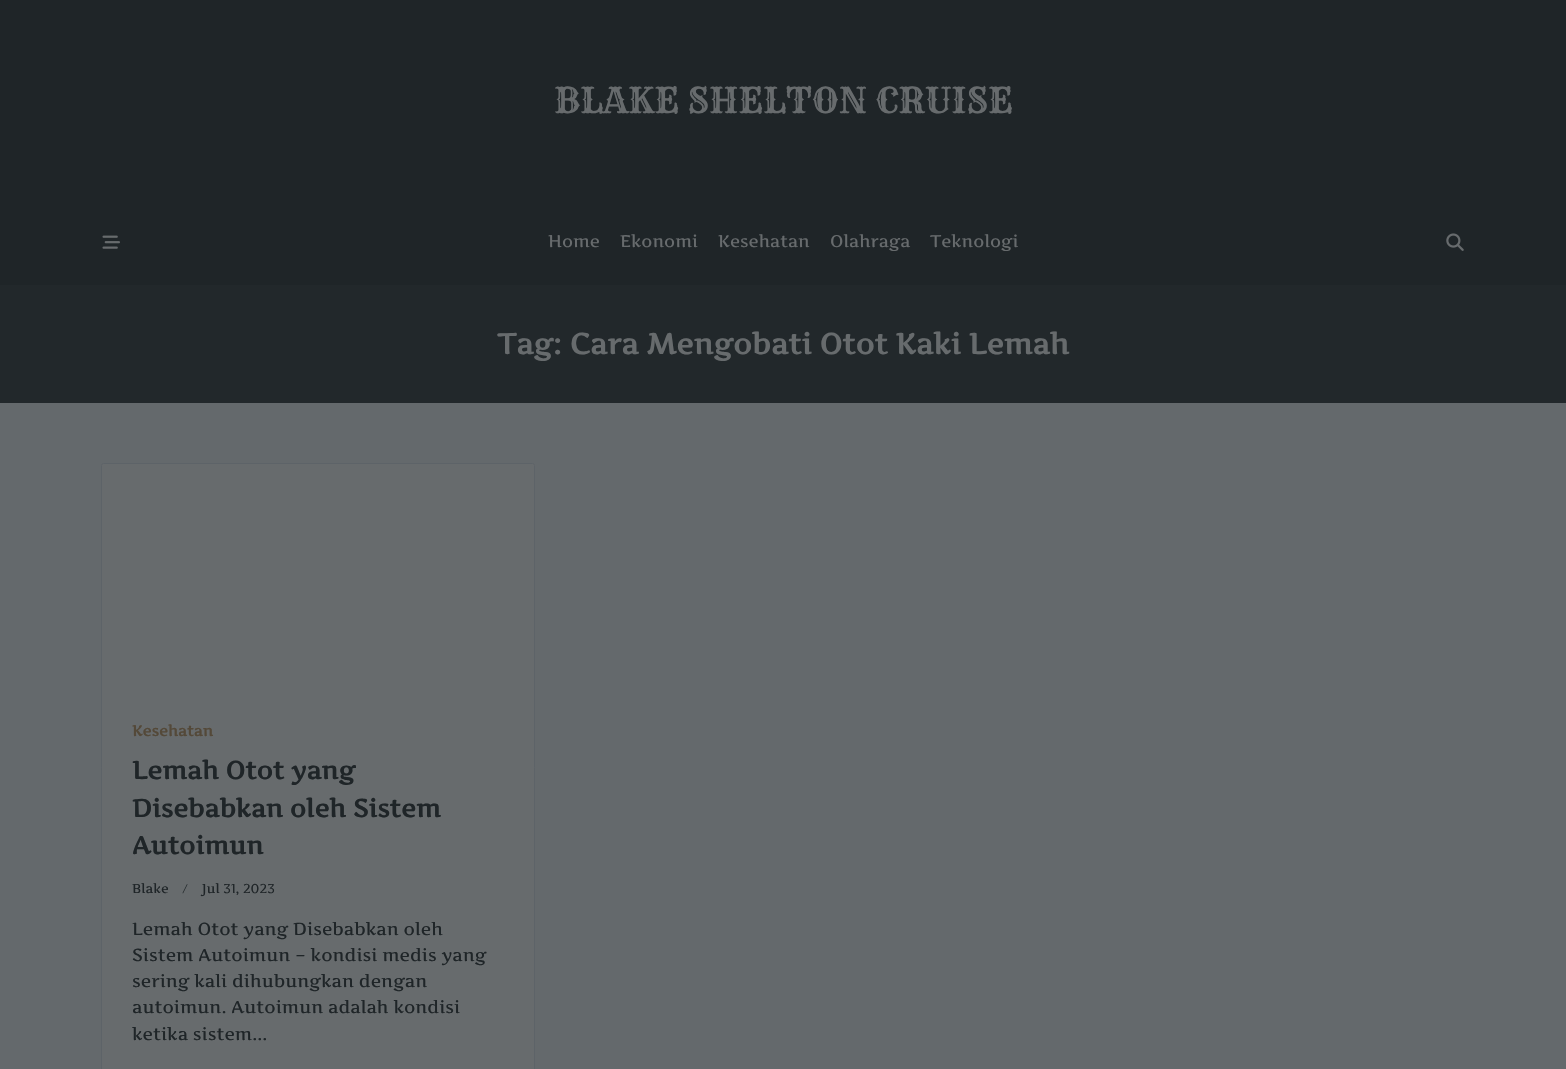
#include "include/core/SkBlurTypes.h"
#include "include/core/SkCanvas.h"
#include "include/core/SkData.h"
#include "include/core/SkFont.h"
#include "include/core/SkFontMgr.h"
#include "include/core/SkImage.h"
#include "include/core/SkMaskFilter.h"
#include "include/core/SkPaint.h"
#include "include/core/SkPathBuilder.h"
#include "include/core/SkTextBlob.h"
#include "include/effects/SkDashPathEffect.h"
#include "include/effects/SkGradientShader.h"
#include "include/utils/SkParsePath.h"

extern sk_sp<SkFontMgr> fontMgr;

void draw(SkCanvas* canvas) {
  SkPaint p;
  p.setAntiAlias(true);
  canvas->clear(SkColorSetRGB(100, 105, 108));
  p.setColor(SkColorSetRGB(31, 37, 40));
  canvas->drawRect(SkRect::MakeLTRB(0, 0, 1566, 285), p);
  canvas->drawImageRect(SkImages::DeferredFromEncodedData(SkData::MakeFromFileName("images/1.png")), SkRect::MakeLTRB(102, 235, 120, 249), SkSamplingOptions());
  canvas->drawImageRect(SkImages::DeferredFromEncodedData(SkData::MakeFromFileName("images/2.png")), SkRect::MakeLTRB(1446, 233, 1464, 251), SkSamplingOptions());
  p.setColor(SkColorSetRGB(34, 40, 43));
  canvas->drawRect(SkRect::MakeLTRB(0, 285, 1566, 403), p);
  p.setColor(SkColorSetRGB(103, 107, 109));
  canvas->drawRoundRect(SkRect::MakeLTRB(101.5f, 463.5f, 534.5f, 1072.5f), 2, 2, p);
  p.setStyle(SkPaint::kStroke_Style);
  p.setStrokeWidth(1);
  p.setColor(SkColorSetRGB(93, 99, 104));
  canvas->drawRoundRect(SkRect::MakeLTRB(101.5f, 463.5f, 534.5f, 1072.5f), 2, 2, p);
  p.setStyle(SkPaint::kFill_Style);
  p.setColor(SkColorSetRGB(31, 37, 40));
  canvas->drawPath(SkPathBuilder().moveTo(182.5f, 893).lineTo(187, 884).lineTo(187.5f, 884.5f).lineTo(183, 893.5f).close().detach(), p);
  SkFont font1(fontMgr->matchFamilyStyle("Rye", SkFontStyle::Normal()), 35);
  font1.setSubpixel(true);
  p.setColor(SkColorSetRGB(103, 107, 109));
  canvas->drawString("BLAKE SHELTON CRUISE", 554, 113, font1, p);
  SkFont font2(fontMgr->matchFamilyStyle("Artifika", SkFontStyle::Normal()), 17);
  font2.setSubpixel(true);
  canvas->drawString("Home", 548, 247, font2, p);
  canvas->drawString("Ekonomi", 620, 247, font2, p);
  canvas->drawString("Kesehatan", 718, 247, font2, p);
  canvas->drawString("Olahraga", 830, 247, font2, p);
  canvas->drawString("Teknologi", 930, 247, font2, p);
  SkFont font3(fontMgr->matchFamilyStyle("Artifika", SkFontStyle::Bold()), 29);
  font3.setSubpixel(true);
  canvas->drawString("Tag: Cara Mengobati Otot Kaki Lemah", 497, 354, font3, p);
  SkFont font4(fontMgr->matchFamilyStyle("Artifika", SkFontStyle::Bold()), 15);
  font4.setSubpixel(true);
  p.setColor(SkColorSetRGB(84, 73, 57));
  canvas->drawString("Kesehatan", 132, 736, font4, p);
  SkFont font5(fontMgr->matchFamilyStyle("Artifika", SkFontStyle::Bold()), 25);
  font5.setSubpixel(true);
  p.setColor(SkColorSetRGB(31, 37, 40));
  canvas->drawString("Lemah Otot yang", 132, 779, font5, p);
  canvas->drawString("Disebabkan oleh Sistem", 132, 817, font5, p);
  canvas->drawString("Autoimun", 132, 854, font5, p);
  SkFont font6(fontMgr->matchFamilyStyle("Artifika", SkFontStyle::Normal()), 13);
  font6.setSubpixel(true);
  canvas->drawString("Blake", 132, 893, font6, p);
  canvas->drawString("Jul 31, 2023", 202, 893, font6, p);
  SkFont font7(fontMgr->matchFamilyStyle("Artifika", SkFontStyle::Normal()), 17.5f);
  font7.setSubpixel(true);
  canvas->drawString("Lemah Otot yang Disebabkan oleh", 132, 935, font7, p);
  canvas->drawString("Sistem Autoimun – kondisi medis yang", 132, 961, font7, p);
  canvas->drawString("sering kali dihubungkan dengan", 132, 987, font7, p);
  canvas->drawString("autoimun. Autoimun adalah kondisi", 132, 1013, font7, p);
  canvas->drawString("ketika sistem...", 132, 1040, font7, p);
}
